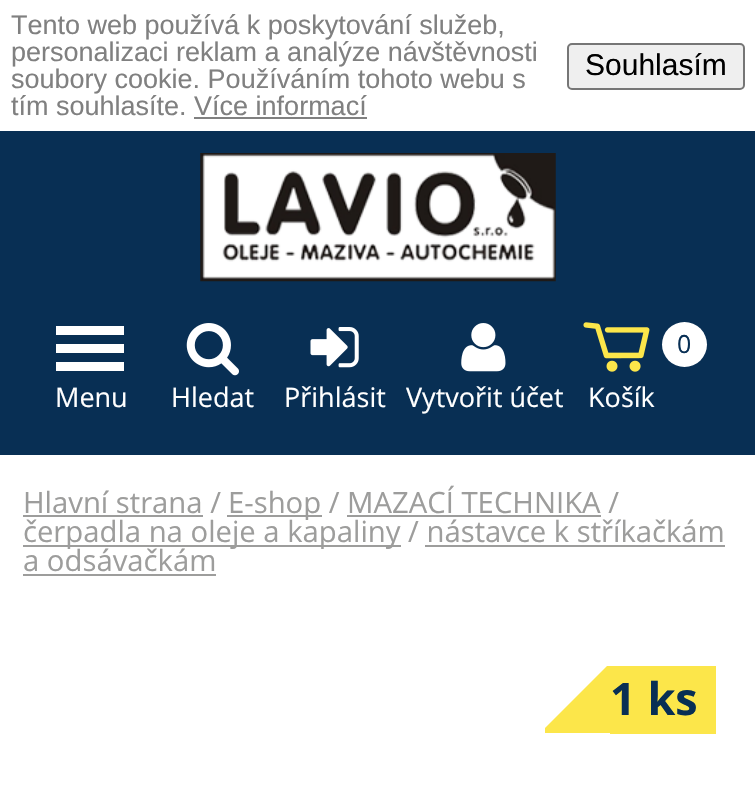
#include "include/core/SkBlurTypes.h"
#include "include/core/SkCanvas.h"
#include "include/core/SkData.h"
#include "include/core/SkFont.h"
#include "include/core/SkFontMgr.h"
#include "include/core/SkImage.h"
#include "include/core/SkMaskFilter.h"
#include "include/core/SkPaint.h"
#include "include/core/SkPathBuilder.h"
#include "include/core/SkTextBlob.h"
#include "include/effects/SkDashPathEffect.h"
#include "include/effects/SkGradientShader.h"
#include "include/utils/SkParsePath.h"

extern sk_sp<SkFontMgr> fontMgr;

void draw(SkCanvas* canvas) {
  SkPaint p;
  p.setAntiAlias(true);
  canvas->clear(SkColorSetRGB(8, 47, 84));
  p.setColor(SK_ColorWHITE);
  canvas->drawRect(SkRect::MakeLTRB(0, 0, 755, 131), p);
  p.setColor(SkColorSetRGB(128, 128, 128));
  canvas->drawRect(SkRect::MakeLTRB(194, 117, 367, 119), p);
  p.setColor(SkColorSetRGB(239, 239, 239));
  canvas->drawRoundRect(SkRect::MakeLTRB(568, 44, 744, 89), 4, 4, p);
  p.setStyle(SkPaint::kStroke_Style);
  p.setStrokeWidth(2);
  p.setColor(SkColorSetRGB(118, 118, 118));
  canvas->drawRoundRect(SkRect::MakeLTRB(568, 44, 744, 89), 4, 4, p);
  canvas->drawImageRect(SkImages::DeferredFromEncodedData(SkData::MakeFromFileName("images/1.png")), SkRect::MakeLTRB(200, 153, 556, 282), SkSamplingOptions());
  p.setStyle(SkPaint::kFill_Style);
  p.setColor(SK_ColorWHITE);
  canvas->drawRect(SkRect::MakeLTRB(56, 326, 124, 335), p);
  canvas->drawRect(SkRect::MakeLTRB(56, 344, 124, 353), p);
  canvas->drawRect(SkRect::MakeLTRB(56, 362, 124, 371), p);
  canvas->drawImageRect(SkImages::DeferredFromEncodedData(SkData::MakeFromFileName("images/2.png")), SkRect::MakeLTRB(186, 323, 239, 376), SkSamplingOptions());
  canvas->drawImageRect(SkImages::DeferredFromEncodedData(SkData::MakeFromFileName("images/3.png")), SkRect::MakeLTRB(310, 327, 359, 368), SkSamplingOptions());
  canvas->drawImageRect(SkImages::DeferredFromEncodedData(SkData::MakeFromFileName("images/4.png")), SkRect::MakeLTRB(461, 323, 506, 372), SkSamplingOptions());
  canvas->drawImageRect(SkImages::DeferredFromEncodedData(SkData::MakeFromFileName("images/5.png")), SkRect::MakeLTRB(583, 322, 650, 372), SkSamplingOptions());
  canvas->drawCircle(684.5f, 344.5f, 22.5f, p);
  canvas->drawRect(SkRect::MakeLTRB(0, 455, 755, 792), p);
  p.setColor(SkColorSetRGB(157, 157, 156));
  canvas->drawRect(SkRect::MakeLTRB(23, 515, 203, 517), p);
  canvas->drawRect(SkRect::MakeLTRB(227, 515, 322, 517), p);
  canvas->drawRect(SkRect::MakeLTRB(347, 515, 601, 517), p);
  canvas->drawRect(SkRect::MakeLTRB(23, 545, 401, 547), p);
  canvas->drawRect(SkRect::MakeLTRB(425, 545, 725, 547), p);
  canvas->drawRect(SkRect::MakeLTRB(23, 574, 216, 576), p);
  p.setColor(SkColorSetRGB(252, 230, 74));
  canvas->drawRect(SkRect::MakeLTRB(610, 666, 716, 734), p);
  canvas->save();
  canvas->clipRect(SkRect::MakeLTRB(545, 666, 612, 734));
  canvas->drawPath(SkPathBuilder().moveTo(540, 733).lineTo(612, 733).lineTo(612, 661).close().detach(), p);
  canvas->restore();
  SkFont font1(fontMgr->matchFamilyStyle("Liberation Sans", SkFontStyle::Normal()), 27);
  font1.setSubpixel(true);
  p.setColor(SkColorSetRGB(128, 128, 128));
  canvas->drawString("Tento web používá k poskytování služeb,", 11, 34, font1, p);
  canvas->drawString("personalizaci reklam a analýze návštěvnosti", 11, 61, font1, p);
  canvas->drawString("soubory cookie. Používáním tohoto webu s", 11, 88, font1, p);
  canvas->drawString("tím souhlasíte. Více informací", 11, 115, font1, p);
  SkFont font2(fontMgr->matchFamilyStyle("Liberation Sans", SkFontStyle::Normal()), 30);
  font2.setSubpixel(true);
  p.setColor(SK_ColorBLACK);
  canvas->drawString("Souhlasím", 585, 75, font2, p);
  SkFont font3(fontMgr->matchFamilyStyle("Open Sans", SkFontStyle::Normal()), 27);
  font3.setSubpixel(true);
  p.setColor(SK_ColorWHITE);
  canvas->drawString("Menu", 55, 407, font3, p);
  canvas->drawString("Hledat", 171, 407, font3, p);
  canvas->drawString("Přihlásit", 284, 407, font3, p);
  canvas->drawString("Vytvořit účet", 406, 407, font3, p);
  SkFont font4(fontMgr->matchFamilyStyle("Open Sans", SkFontStyle::Normal()), 25);
  font4.setSubpixel(true);
  p.setColor(SkColorSetRGB(8, 47, 84));
  canvas->drawString("0", 677, 353, font4, p);
  p.setColor(SK_ColorWHITE);
  canvas->drawString("Košík", 588, 407, font3, p);
  SkFont font5(fontMgr->matchFamilyStyle("Open Sans", SkFontStyle::Normal()), 29.25f);
  font5.setSubpixel(true);
  p.setColor(SkColorSetRGB(157, 157, 156));
  canvas->drawString("Hlavní strana /", 23, 513, font5, p);
  canvas->drawString("E-shop / MAZACÍ TECHNIKA /", 228, 513, font5, p);
  canvas->drawString("čerpadla na oleje a kapaliny / nástavce k stříkačkám", 23, 542, font5, p);
  canvas->drawString("a odsávačkám", 23, 571, font5, p);
  SkFont font6(fontMgr->matchFamilyStyle("Open Sans", SkFontStyle::Bold()), 45);
  font6.setSubpixel(true);
  p.setColor(SkColorSetRGB(8, 47, 84));
  canvas->drawString("1 ks", 610, 715, font6, p);
}
